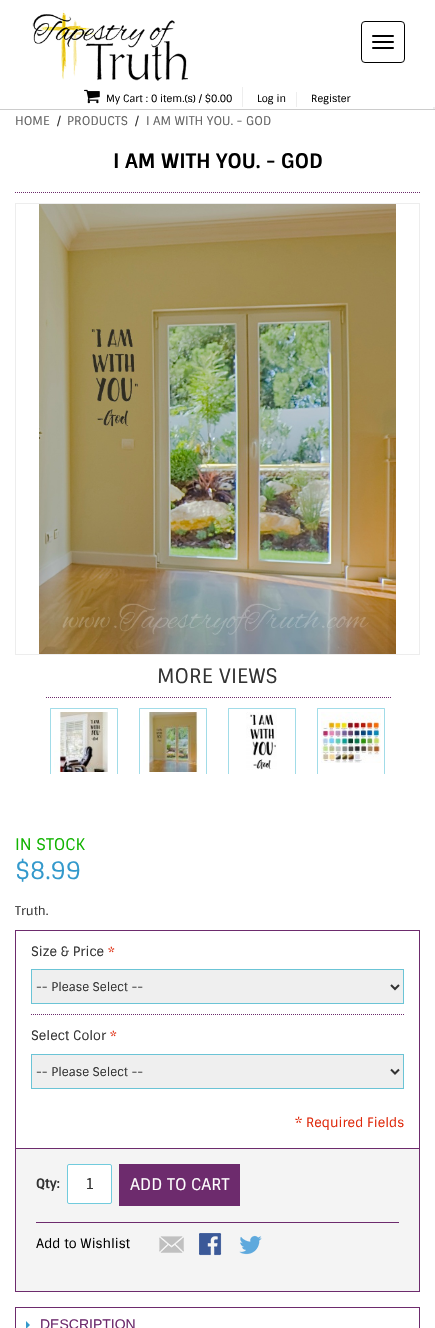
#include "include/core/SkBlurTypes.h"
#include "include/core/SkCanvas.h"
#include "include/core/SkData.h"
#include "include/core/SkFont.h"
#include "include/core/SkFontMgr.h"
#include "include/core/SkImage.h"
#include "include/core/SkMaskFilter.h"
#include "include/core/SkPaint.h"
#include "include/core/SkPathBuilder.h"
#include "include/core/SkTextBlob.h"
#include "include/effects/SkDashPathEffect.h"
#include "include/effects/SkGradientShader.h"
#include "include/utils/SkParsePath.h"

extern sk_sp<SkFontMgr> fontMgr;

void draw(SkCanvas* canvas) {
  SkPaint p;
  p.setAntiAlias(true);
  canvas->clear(SK_ColorWHITE);
  p.setColor(SkColorSetRGB(204, 204, 204));
  canvas->drawRect(SkRect::MakeLTRB(0, 109, 435, 110), p);
  canvas->drawImageRect(SkImages::DeferredFromEncodedData(SkData::MakeFromFileName("images/1.png")), SkRect::MakeLTRB(32, 10, 188, 81), SkSamplingOptions());
  p.setColor(SkColorSetRGB(238, 238, 238));
  canvas->drawRect(SkRect::MakeLTRB(242, 87, 243, 107), p);
  canvas->drawImageRect(SkImages::DeferredFromEncodedData(SkData::MakeFromFileName("images/2.png")), SkRect::MakeLTRB(84, 89, 100, 104), SkSamplingOptions());
  canvas->drawRect(SkRect::MakeLTRB(296, 92, 297, 107), p);
  canvas->drawRect(SkRect::MakeLTRB(433, 107, 435, 109), p);
  p.setStyle(SkPaint::kStroke_Style);
  p.setStrokeWidth(1);
  p.setColor(SK_ColorBLACK);
  canvas->drawRoundRect(SkRect::MakeLTRB(361.5f, 21.5f, 404.5f, 62.5f), 3.5f, 3.5f, p);
  p.setStyle(SkPaint::kFill_Style);
  canvas->drawRoundRect(SkRect::MakeLTRB(372, 35, 394, 37), 1, 1, p);
  canvas->drawRoundRect(SkRect::MakeLTRB(372, 41, 394, 43), 1, 1, p);
  canvas->drawRoundRect(SkRect::MakeLTRB(372, 47, 394, 49), 1, 1, p);
  p.setStyle(SkPaint::kStroke_Style);
  p.setColor(SkColorSetRGB(109, 43, 109));
  p.setPathEffect(SkDashPathEffect::Make({{1, 1}}, 0));
  canvas->drawPath(SkPathBuilder().moveTo(15, 192.5f).lineTo(420, 192.5f).detach(), p);
  p.setPathEffect(nullptr);
  p.setColor(SkColorSetRGB(237, 237, 237));
  canvas->drawRect(SkRect::MakeLTRB(15.5f, 203.5f, 419.5f, 654.5f), p);
  canvas->drawImageRect(SkImages::DeferredFromEncodedData(SkData::MakeFromFileName("images/3.png")), SkRect::MakeLTRB(39, 204, 396, 654), SkSamplingOptions());
  canvas->save();
  canvas->clipRect(SkRect::MakeLTRB(45, 697, 391, 774));
  p.setColor(SkColorSetRGB(109, 43, 109));
  p.setPathEffect(SkDashPathEffect::Make({{1, 1}}, 0));
  canvas->drawPath(SkPathBuilder().moveTo(-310, 697.5f).lineTo(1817, 697.5f).detach(), p);
  p.setPathEffect(nullptr);
  canvas->restore();
  p.setStyle(SkPaint::kFill_Style);
  p.setColor(SkColorSetRGB(161, 220, 232));
  canvas->drawPath(SkPathBuilder().moveTo(50, 708).lineTo(118, 708).lineTo(117, 709).lineTo(51, 709).close().detach(), p);
  canvas->save();
  canvas->clipRect(SkRect::MakeLTRB(45, 697, 391, 774));
  p.setColor(SkColorSetARGB(102, 19, 168, 198));
  canvas->drawPath(SkPathBuilder().moveTo(118, 708).lineTo(118, 780).lineTo(117, 775).lineTo(117, 709).close().detach(), p);
  canvas->drawPath(SkPathBuilder().moveTo(50, 780).lineTo(50, 708).lineTo(51, 709).lineTo(51, 775).close().detach(), p);
  canvas->restore();
  canvas->drawImageRect(SkImages::DeferredFromEncodedData(SkData::MakeFromFileName("images/4.png")), SkRect::MakeLTRB(54, 712, 108, 772), SkSamplingOptions());
  p.setColor(SkColorSetRGB(161, 220, 232));
  canvas->drawPath(SkPathBuilder().moveTo(139, 708).lineTo(207, 708).lineTo(206, 709).lineTo(140, 709).close().detach(), p);
  canvas->save();
  canvas->clipRect(SkRect::MakeLTRB(45, 697, 391, 774));
  p.setColor(SkColorSetARGB(102, 19, 168, 198));
  canvas->drawPath(SkPathBuilder().moveTo(207, 708).lineTo(207, 780).lineTo(206, 775).lineTo(206, 709).close().detach(), p);
  canvas->drawPath(SkPathBuilder().moveTo(139, 780).lineTo(139, 708).lineTo(140, 709).lineTo(140, 775).close().detach(), p);
  canvas->restore();
  canvas->drawImageRect(SkImages::DeferredFromEncodedData(SkData::MakeFromFileName("images/5.png")), SkRect::MakeLTRB(143, 712, 200, 772), SkSamplingOptions());
  p.setColor(SkColorSetRGB(161, 220, 232));
  canvas->drawPath(SkPathBuilder().moveTo(228, 708).lineTo(296, 708).lineTo(295, 709).lineTo(229, 709).close().detach(), p);
  canvas->save();
  canvas->clipRect(SkRect::MakeLTRB(45, 697, 391, 774));
  p.setColor(SkColorSetARGB(102, 19, 168, 198));
  canvas->drawPath(SkPathBuilder().moveTo(296, 708).lineTo(296, 780).lineTo(295, 775).lineTo(295, 709).close().detach(), p);
  canvas->drawPath(SkPathBuilder().moveTo(228, 780).lineTo(228, 708).lineTo(229, 709).lineTo(229, 775).close().detach(), p);
  canvas->restore();
  canvas->drawImageRect(SkImages::DeferredFromEncodedData(SkData::MakeFromFileName("images/6.png")), SkRect::MakeLTRB(246, 712, 277, 770), SkSamplingOptions());
  p.setColor(SkColorSetRGB(161, 220, 232));
  canvas->drawPath(SkPathBuilder().moveTo(317, 708).lineTo(385, 708).lineTo(384, 709).lineTo(318, 709).close().detach(), p);
  canvas->save();
  canvas->clipRect(SkRect::MakeLTRB(45, 697, 391, 774));
  p.setColor(SkColorSetARGB(102, 19, 168, 198));
  canvas->drawPath(SkPathBuilder().moveTo(385, 708).lineTo(385, 780).lineTo(384, 775).lineTo(384, 709).close().detach(), p);
  canvas->drawPath(SkPathBuilder().moveTo(317, 780).lineTo(317, 708).lineTo(318, 709).lineTo(318, 775).close().detach(), p);
  canvas->restore();
  canvas->drawImageRect(SkImages::DeferredFromEncodedData(SkData::MakeFromFileName("images/7.png")), SkRect::MakeLTRB(321, 712, 381, 763), SkSamplingOptions());
  p.setStyle(SkPaint::kStroke_Style);
  p.setColor(SkColorSetRGB(109, 43, 109));
  canvas->drawRect(SkRect::MakeLTRB(15.5f, 930.5f, 419.5f, 1148.5f), p);
  p.setPathEffect(SkDashPathEffect::Make({{1, 1}}, 0));
  canvas->drawPath(SkPathBuilder().moveTo(31, 1014.5f).lineTo(404, 1014.5f).detach(), p);
  p.setPathEffect(nullptr);
  p.setStyle(SkPaint::kFill_Style);
  p.setColor(SkColorSetRGB(239, 239, 239));
  canvas->drawRect(SkRect::MakeLTRB(31.5f, 969.5f, 403.5f, 1003.5f), p);
  p.setStyle(SkPaint::kStroke_Style);
  p.setColor(SkColorSetRGB(107, 196, 214));
  canvas->drawRect(SkRect::MakeLTRB(31.5f, 969.5f, 403.5f, 1003.5f), p);
  p.setStrokeWidth(2);
  p.setColor(SkColorSetRGB(51, 51, 51));
  canvas->drawPath(SkPathBuilder().moveTo(391, 985).lineTo(395, 989).lineTo(399, 985).detach(), p);
  p.setStyle(SkPaint::kFill_Style);
  p.setColor(SkColorSetRGB(239, 239, 239));
  canvas->drawRect(SkRect::MakeLTRB(31.5f, 1054.5f, 403.5f, 1088.5f), p);
  p.setStyle(SkPaint::kStroke_Style);
  p.setStrokeWidth(1);
  p.setColor(SkColorSetRGB(107, 196, 214));
  canvas->drawRect(SkRect::MakeLTRB(31.5f, 1054.5f, 403.5f, 1088.5f), p);
  p.setStrokeWidth(2);
  p.setColor(SkColorSetRGB(51, 51, 51));
  canvas->drawPath(SkPathBuilder().moveTo(391, 1069.5f).lineTo(395, 1073.5f).lineTo(399, 1069.5f).detach(), p);
  p.setStyle(SkPaint::kFill_Style);
  p.setColor(SkColorSetRGB(244, 244, 244));
  canvas->drawRect(SkRect::MakeLTRB(16, 1149, 419, 1291), p);
  p.setColor(SkColorSetRGB(109, 43, 109));
  canvas->drawRect(SkRect::MakeLTRB(419, 1149, 420, 1292), p);
  canvas->drawRect(SkRect::MakeLTRB(15, 1291, 420, 1292), p);
  canvas->drawRect(SkRect::MakeLTRB(15, 1149, 16, 1292), p);
  canvas->drawRect(SkRect::MakeLTRB(36, 1222, 399, 1223), p);
  p.setColor(SK_ColorWHITE);
  canvas->drawRoundRect(SkRect::MakeLTRB(67.5f, 1164.5f, 111.5f, 1203.5f), 1.5f, 1.5f, p);
  p.setStyle(SkPaint::kStroke_Style);
  p.setStrokeWidth(1);
  p.setColor(SkColorSetRGB(113, 203, 221));
  canvas->drawRoundRect(SkRect::MakeLTRB(67.5f, 1164.5f, 111.5f, 1203.5f), 1.5f, 1.5f, p);
  p.setStyle(SkPaint::kFill_Style);
  p.setColor(SkColorSetRGB(109, 43, 109));
  canvas->drawRect(SkRect::MakeLTRB(119, 1164, 240, 1206), p);
  canvas->drawImageRect(SkImages::DeferredFromEncodedData(SkData::MakeFromFileName("images/8.png")), SkRect::MakeLTRB(159, 1236, 184, 1253), SkSamplingOptions());
  canvas->drawImageRect(SkImages::DeferredFromEncodedData(SkData::MakeFromFileName("images/9.png")), SkRect::MakeLTRB(199, 1233, 222, 1256), SkSamplingOptions());
  canvas->drawImageRect(SkImages::DeferredFromEncodedData(SkData::MakeFromFileName("images/10.png")), SkRect::MakeLTRB(239, 1235, 262, 1255), SkSamplingOptions());
  p.setStyle(SkPaint::kStroke_Style);
  canvas->drawRect(SkRect::MakeLTRB(15.5f, 1307.5f, 419.5f, 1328.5f), p);
  p.setStyle(SkPaint::kFill_Style);
  p.setColor(SkColorSetRGB(51, 153, 204));
  canvas->drawPath(SkPathBuilder().moveTo(26, 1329).lineTo(26, 1321).lineTo(30, 1325).close().detach(), p);
  SkFont font1(fontMgr->matchFamilyStyle("Sintony", SkFontStyle::Normal()), 10);
  font1.setSubpixel(true);
  p.setColor(SK_ColorBLACK);
  canvas->drawString("My Cart : 0 item.(s) / $0.00", 106, 102, font1, p);
  canvas->drawString("Log in", 257, 102, font1, p);
  canvas->drawString("Register", 311, 102, font1, p);
  SkFont font2(fontMgr->matchFamilyStyle("Sintony", SkFontStyle::Normal()), 12);
  font2.setSubpixel(true);
  p.setColor(SkColorSetRGB(99, 99, 99));
  canvas->drawString("HOME", 15, 125, font2, p);
  p.setColor(SkColorSetRGB(51, 51, 51));
  canvas->drawString("/", 57, 125, font2, p);
  p.setColor(SkColorSetRGB(99, 99, 99));
  canvas->drawString("PRODUCTS", 67, 125, font2, p);
  p.setColor(SkColorSetRGB(51, 51, 51));
  canvas->drawString("/", 135, 125, font2, p);
  p.setColor(SkColorSetRGB(99, 99, 99));
  canvas->drawString("I AM WITH YOU. - GOD", 146, 125, font2, p);
  SkFont font3(fontMgr->matchFamilyStyle("Sintony", SkFontStyle::Bold()), 20);
  font3.setSubpixel(true);
  p.setColor(SK_ColorBLACK);
  canvas->drawString("I AM WITH YOU. - GOD", 113, 168, font3, p);
  SkFont font4(fontMgr->matchFamilyStyle("Sintony", SkFontStyle::Normal()), 20);
  font4.setSubpixel(true);
  p.setColor(SkColorSetRGB(51, 51, 51));
  canvas->drawString("MORE VIEWS", 157, 683, font4, p);
  SkFont font5(fontMgr->matchFamilyStyle("Sintony", SkFontStyle::Normal()), 16);
  font5.setSubpixel(true);
  p.setColor(SkColorSetRGB(17, 180, 0));
  canvas->drawString("IN STOCK", 15, 850, font5, p);
  SkFont font6(fontMgr->matchFamilyStyle("Sintony", SkFontStyle::Normal()), 24);
  font6.setSubpixel(true);
  p.setColor(SkColorSetRGB(51, 153, 204));
  canvas->drawString("$8.99", 15, 879, font6, p);
  p.setColor(SkColorSetRGB(51, 51, 51));
  canvas->drawString("Truth.", 15, 915, font2, p);
  SkFont font7(fontMgr->matchFamilyStyle("Sintony", SkFontStyle::Normal()), 13);
  font7.setSubpixel(true);
  canvas->drawString("Size & Price", 31, 956, font7, p);
  p.setColor(SkColorSetRGB(223, 40, 10));
  canvas->drawString("*", 108, 956, font2, p);
  p.setColor(SkColorSetRGB(51, 51, 51));
  canvas->drawString("-- Please Select --", 36, 991, font2, p);
  canvas->drawString("Select Color", 31, 1040, font7, p);
  p.setColor(SkColorSetRGB(223, 40, 10));
  canvas->drawString("*", 110, 1040, font2, p);
  p.setColor(SkColorSetRGB(51, 51, 51));
  canvas->drawString("-- Please Select --", 36, 1076, font2, p);
  p.setColor(SkColorSetRGB(223, 40, 10));
  canvas->drawString("* Required Fields", 295, 1127, font7, p);
  SkFont font8(fontMgr->matchFamilyStyle("Sintony", SkFontStyle::Bold()), 13);
  font8.setSubpixel(true);
  p.setColor(SkColorSetRGB(51, 51, 51));
  canvas->drawString("Qty:", 36, 1188, font8, p);
  SkFont font9(fontMgr->matchFamilyStyle("Sintony", SkFontStyle::Normal()), 15);
  font9.setSubpixel(true);
  canvas->drawString("1", 85, 1189, font9, p);
  p.setColor(SK_ColorWHITE);
  canvas->drawString("ADD TO CART", 130, 1190, font5, p);
  p.setColor(SK_ColorBLACK);
  canvas->drawString("Add to Wishlist", 36, 1248, font7, p);
  SkFont font10(fontMgr->matchFamilyStyle("Liberation Sans", SkFontStyle::Normal()), 14);
  font10.setSubpixel(true);
  p.setColor(SkColorSetRGB(109, 43, 109));
  canvas->drawString("DESCRIPTION", 40, 1329, font10, p);
}
